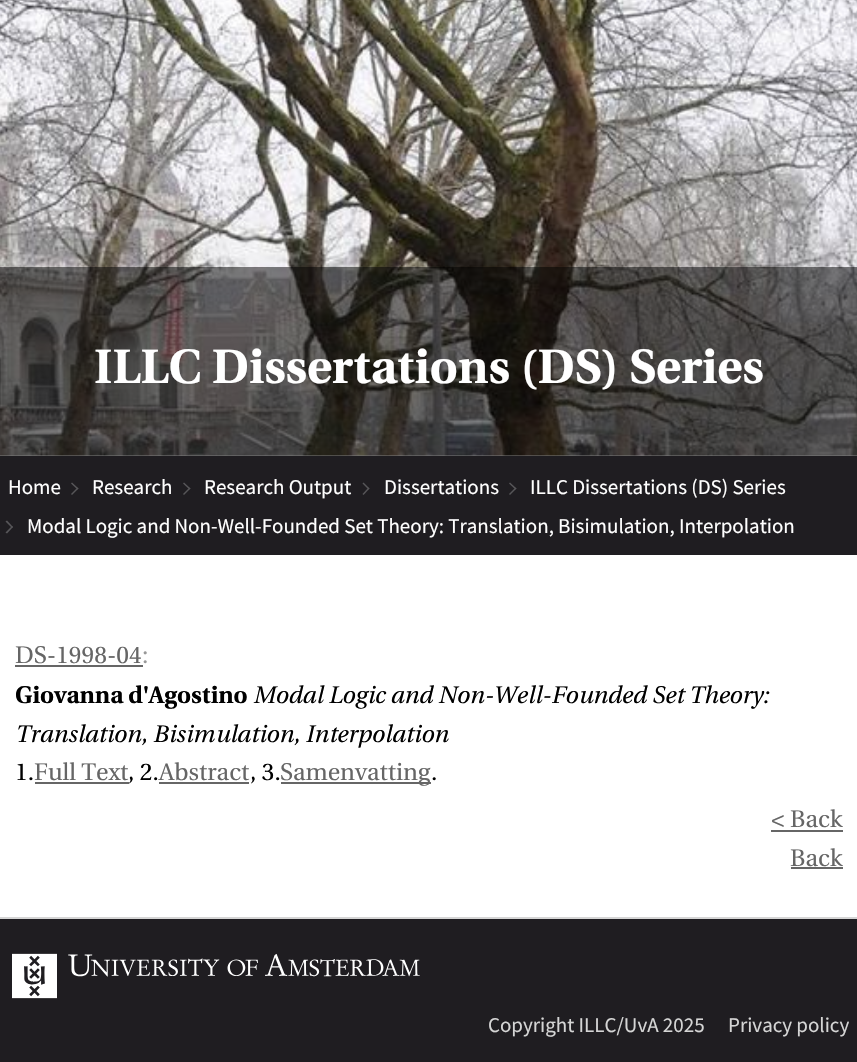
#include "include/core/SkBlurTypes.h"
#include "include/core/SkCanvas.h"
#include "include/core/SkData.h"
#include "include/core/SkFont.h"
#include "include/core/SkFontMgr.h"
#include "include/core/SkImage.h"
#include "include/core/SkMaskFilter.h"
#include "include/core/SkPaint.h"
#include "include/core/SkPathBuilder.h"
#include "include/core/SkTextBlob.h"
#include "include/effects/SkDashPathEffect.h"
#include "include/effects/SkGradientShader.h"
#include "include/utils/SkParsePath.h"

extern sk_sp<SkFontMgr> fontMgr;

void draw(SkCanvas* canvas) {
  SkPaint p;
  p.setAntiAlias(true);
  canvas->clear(SK_ColorWHITE);
  canvas->drawImageRect(SkImages::DeferredFromEncodedData(SkData::MakeFromFileName("images/1.png")), SkRect::MakeLTRB(0, 0, 857, 456), SkSamplingOptions());
  p.setColor(SkColorSetARGB(128, 0, 0, 0));
  canvas->drawRect(SkRect::MakeLTRB(0, 267, 857, 456), p);
  p.setColor(SkColorSetRGB(31, 29, 33));
  canvas->drawRect(SkRect::MakeLTRB(0, 456, 857, 555), p);
  p.setColor(SkColorSetRGB(87, 86, 89));
  canvas->drawPath(SkPathBuilder().moveTo(71, 483.5f).lineTo(72, 482.5f).lineTo(78.5f, 488.5f).lineTo(77.5f, 489.5f).close().detach(), p);
  canvas->drawPath(SkPathBuilder().moveTo(71, 494).lineTo(77.5f, 487.5f).lineTo(78.5f, 488.5f).lineTo(72, 495).close().detach(), p);
  canvas->drawPath(SkPathBuilder().moveTo(183, 483.5f).lineTo(184, 482.5f).lineTo(190.5f, 488.5f).lineTo(189.5f, 489.5f).close().detach(), p);
  canvas->drawPath(SkPathBuilder().moveTo(183, 494).lineTo(189.5f, 487.5f).lineTo(190.5f, 488.5f).lineTo(184, 495).close().detach(), p);
  canvas->drawPath(SkPathBuilder().moveTo(362.5f, 483.5f).lineTo(363.5f, 482.5f).lineTo(369.5f, 488.5f).lineTo(368.5f, 489.5f).close().detach(), p);
  canvas->drawPath(SkPathBuilder().moveTo(362.5f, 494).lineTo(368.5f, 487.5f).lineTo(369.5f, 488.5f).lineTo(363.5f, 495).close().detach(), p);
  canvas->drawPath(SkPathBuilder().moveTo(509, 483.5f).lineTo(510, 482.5f).lineTo(516.5f, 488.5f).lineTo(515.5f, 489.5f).close().detach(), p);
  canvas->drawPath(SkPathBuilder().moveTo(509, 494).lineTo(515.5f, 487.5f).lineTo(516.5f, 488.5f).lineTo(510, 495).close().detach(), p);
  canvas->drawPath(SkPathBuilder().moveTo(5.5f, 521.5f).lineTo(7, 520.5f).lineTo(13, 527).lineTo(12, 528).close().detach(), p);
  canvas->drawPath(SkPathBuilder().moveTo(5.5f, 532.5f).lineTo(12, 526).lineTo(13, 527).lineTo(7, 533.5f).close().detach(), p);
  p.setColor(SkColorSetRGB(102, 102, 102));
  canvas->drawRect(SkRect::MakeLTRB(15, 665, 143, 667), p);
  canvas->drawRect(SkRect::MakeLTRB(35, 782, 129, 784), p);
  canvas->drawRect(SkRect::MakeLTRB(159, 782, 249, 784), p);
  canvas->drawRect(SkRect::MakeLTRB(281, 782, 431, 784), p);
  canvas->drawRect(SkRect::MakeLTRB(771, 830, 843, 832), p);
  canvas->drawRect(SkRect::MakeLTRB(791, 867, 843, 869), p);
  p.setColor(SkColorSetRGB(31, 29, 33));
  canvas->drawRect(SkRect::MakeLTRB(0, 919, 857, 1062), p);
  p.setColor(SkColorSetRGB(213, 213, 213));
  canvas->drawRect(SkRect::MakeLTRB(0, 917, 857, 919), p);
  canvas->drawImageRect(SkImages::DeferredFromEncodedData(SkData::MakeFromFileName("images/2.png")), SkRect::MakeLTRB(12, 953, 420, 999), SkSamplingOptions());
  SkFont font1(fontMgr->matchFamilyStyle("Utopia", SkFontStyle::Bold()), 48);
  font1.setSubpixel(true);
  p.setColor(SK_ColorWHITE);
  canvas->drawString("ILLC Dissertations (DS) Series", 94, 383, font1, p);
  SkFont font2(fontMgr->matchFamilyStyle("Source Sans Pro", SkFontStyle::Normal()), 21);
  font2.setSubpixel(true);
  canvas->drawString("Home", 8, 494, font2, p);
  canvas->drawString("Research", 92, 494, font2, p);
  canvas->drawString("Research Output", 204, 494, font2, p);
  canvas->drawString("Dissertations", 384, 494, font2, p);
  canvas->drawString("ILLC Dissertations (DS) Series", 530, 494, font2, p);
  canvas->drawString("Modal Logic and Non-Well-Founded Set Theory: Translation, Bisimulation, Interpolation", 27, 533, font2, p);
  SkFont font3(fontMgr->matchFamilyStyle("Utopia", SkFontStyle::Normal()), 24);
  font3.setSubpixel(true);
  p.setColor(SkColorSetRGB(102, 102, 102));
  canvas->drawString("DS-1998-04", 15, 663, font3, p);
  p.setColor(SkColorSetRGB(153, 153, 153));
  canvas->drawString(":", 142, 663, font3, p);
  SkFont font4(fontMgr->matchFamilyStyle("Utopia", SkFontStyle::Bold()), 24);
  font4.setSubpixel(true);
  p.setColor(SK_ColorBLACK);
  canvas->drawString("Giovanna d'Agostino", 15, 703, font4, p);
  SkFont font5(fontMgr->matchFamilyStyle("Utopia", SkFontStyle::Italic()), 24);
  font5.setSubpixel(true);
  canvas->drawString("Modal Logic and Non-Well-Founded Set Theory:", 253, 703, font5, p);
  canvas->drawString("Translation, Bisimulation, Interpolation", 15, 742, font5, p);
  canvas->drawString("1.", 15, 780, font3, p);
  p.setColor(SkColorSetRGB(102, 102, 102));
  canvas->drawString("Full Text", 34, 780, font3, p);
  p.setColor(SK_ColorBLACK);
  canvas->drawString(", 2.", 128, 780, font3, p);
  p.setColor(SkColorSetRGB(102, 102, 102));
  canvas->drawString("Abstract", 159, 780, font3, p);
  p.setColor(SK_ColorBLACK);
  canvas->drawString(", 3.", 250, 780, font3, p);
  p.setColor(SkColorSetRGB(102, 102, 102));
  canvas->drawString("Samenvatting", 280, 780, font3, p);
  p.setColor(SK_ColorBLACK);
  canvas->drawString(".", 431, 780, font3, p);
  p.setColor(SkColorSetRGB(102, 102, 102));
  canvas->drawString("< Back", 771, 827, font3, p);
  canvas->drawString("Back", 790, 866, font3, p);
  p.setColor(SkColorSetRGB(213, 213, 213));
  canvas->drawString("Copyright ILLC/UvA 2025", 488, 1032, font2, p);
  canvas->drawString("Privacy policy", 728, 1032, font2, p);
}
